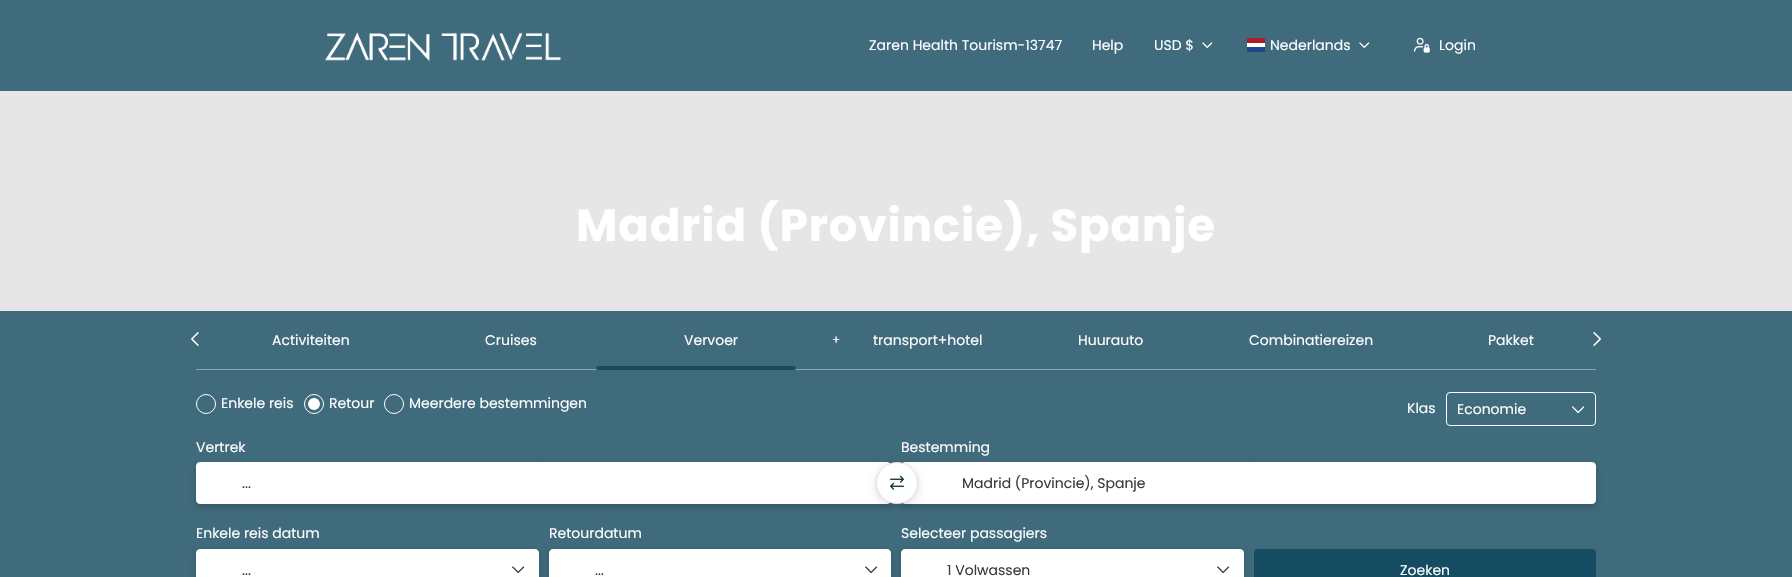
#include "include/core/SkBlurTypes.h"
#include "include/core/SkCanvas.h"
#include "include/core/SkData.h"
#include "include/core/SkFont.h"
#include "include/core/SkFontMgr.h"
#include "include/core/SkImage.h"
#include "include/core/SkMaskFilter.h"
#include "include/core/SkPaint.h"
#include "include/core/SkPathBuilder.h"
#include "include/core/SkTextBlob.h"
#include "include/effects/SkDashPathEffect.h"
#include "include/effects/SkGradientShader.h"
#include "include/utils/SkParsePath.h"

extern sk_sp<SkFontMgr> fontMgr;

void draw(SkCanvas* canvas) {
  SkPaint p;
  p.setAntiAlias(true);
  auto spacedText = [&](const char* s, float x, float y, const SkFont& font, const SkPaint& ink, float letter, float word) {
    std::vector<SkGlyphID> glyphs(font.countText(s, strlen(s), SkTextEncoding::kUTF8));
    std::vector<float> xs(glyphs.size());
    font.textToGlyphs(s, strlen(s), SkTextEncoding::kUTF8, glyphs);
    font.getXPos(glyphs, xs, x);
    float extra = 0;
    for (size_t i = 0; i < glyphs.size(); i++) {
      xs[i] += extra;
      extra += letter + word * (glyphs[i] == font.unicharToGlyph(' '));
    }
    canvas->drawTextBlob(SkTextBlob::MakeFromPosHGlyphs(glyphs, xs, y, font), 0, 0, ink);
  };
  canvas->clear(SkColorSetRGB(230, 230, 230));
  p.setColor(SkColorSetRGB(64, 107, 124));
  canvas->drawRect(SkRect::MakeLTRB(0, 0, 1792, 91), p);
  canvas->drawImageRect(SkImages::DeferredFromEncodedData(SkData::MakeFromFileName("images/1.png")), SkRect::MakeLTRB(325, 32, 561, 61), SkSamplingOptions());
  canvas->drawImageRect(SkImages::DeferredFromEncodedData(SkData::MakeFromFileName("images/2.png")), SkRect::MakeLTRB(1202, 42, 1213, 48), SkSamplingOptions());
  p.setColor(SK_ColorWHITE);
  canvas->drawRect(SkRect::MakeLTRB(1247, 43, 1265, 47), p);
  p.setColor(SkColorSetRGB(33, 70, 139));
  canvas->drawRect(SkRect::MakeLTRB(1247, 47, 1265, 52), p);
  p.setColor(SkColorSetRGB(174, 28, 40));
  canvas->drawRect(SkRect::MakeLTRB(1247, 38, 1265, 43), p);
  canvas->drawImageRect(SkImages::DeferredFromEncodedData(SkData::MakeFromFileName("images/2.png")), SkRect::MakeLTRB(1359, 42, 1370, 48), SkSamplingOptions());
  canvas->drawImageRect(SkImages::DeferredFromEncodedData(SkData::MakeFromFileName("images/3.png")), SkRect::MakeLTRB(1414, 37, 1430, 53), SkSamplingOptions());
  p.setColor(SkColorSetRGB(64, 107, 124));
  canvas->drawRect(SkRect::MakeLTRB(0, 311, 1792, 577), p);
  canvas->drawImageRect(SkImages::DeferredFromEncodedData(SkData::MakeFromFileName("images/4.png")), SkRect::MakeLTRB(191, 332, 199, 346), SkSamplingOptions());
  p.setColor(SkColorSetRGB(140, 166, 176));
  canvas->drawRect(SkRect::MakeLTRB(196, 369, 1596, 370), p);
  p.setColor(SkColorSetRGB(22, 76, 97));
  canvas->drawRoundRect(SkRect::MakeLTRB(596, 366, 796, 370), 2, 2, p);
  canvas->drawImageRect(SkImages::DeferredFromEncodedData(SkData::MakeFromFileName("images/5.png")), SkRect::MakeLTRB(1593, 332, 1601, 346), SkSamplingOptions());
  p.setStyle(SkPaint::kStroke_Style);
  p.setStrokeWidth(1);
  p.setColor(SK_ColorWHITE);
  canvas->drawCircle(206, 404, 9.5f, p);
  canvas->drawCircle(314, 404, 9.5f, p);
  p.setStyle(SkPaint::kFill_Style);
  canvas->drawCircle(314, 404, 4.5f, p);
  p.setStyle(SkPaint::kStroke_Style);
  p.setStrokeWidth(3);
  canvas->drawCircle(314, 404, 4.5f, p);
  p.setStrokeWidth(1);
  canvas->drawCircle(394, 404, 9.5f, p);
  canvas->drawRoundRect(SkRect::MakeLTRB(1446.5f, 392.5f, 1595.5f, 425.5f), 3.5f, 3.5f, p);
  canvas->drawImageRect(SkImages::DeferredFromEncodedData(SkData::MakeFromFileName("images/6.png")), SkRect::MakeLTRB(1572, 406, 1585, 414), SkSamplingOptions());
  p.setStyle(SkPaint::kFill_Style);
  p.setColor(SkColorSetARGB(51, 0, 0, 0));
  p.setMaskFilter(SkMaskFilter::MakeBlur(kNormal_SkBlurStyle, 3.5f));
  canvas->drawRoundRect(SkRect::MakeLTRB(196, 465, 891, 507), 4, 4, p);
  p.setMaskFilter(nullptr);
  p.setColor(SK_ColorWHITE);
  canvas->drawRoundRect(SkRect::MakeLTRB(196.5f, 462.5f, 890.5f, 503.5f), 3.5f, 3.5f, p);
  p.setStyle(SkPaint::kStroke_Style);
  canvas->drawRoundRect(SkRect::MakeLTRB(196.5f, 462.5f, 890.5f, 503.5f), 3.5f, 3.5f, p);
  p.setStyle(SkPaint::kFill_Style);
  p.setColor(SkColorSetARGB(51, 0, 0, 0));
  p.setMaskFilter(SkMaskFilter::MakeBlur(kNormal_SkBlurStyle, 3.5f));
  canvas->drawRoundRect(SkRect::MakeLTRB(901, 465, 1596, 507), 4, 4, p);
  p.setMaskFilter(nullptr);
  p.setColor(SK_ColorWHITE);
  canvas->drawRoundRect(SkRect::MakeLTRB(901.5f, 462.5f, 1595.5f, 503.5f), 3.5f, 3.5f, p);
  p.setStyle(SkPaint::kStroke_Style);
  canvas->drawRoundRect(SkRect::MakeLTRB(901.5f, 462.5f, 1595.5f, 503.5f), 3.5f, 3.5f, p);
  p.setStyle(SkPaint::kFill_Style);
  p.setColor(SkColorSetARGB(38, 0, 0, 0));
  p.setMaskFilter(SkMaskFilter::MakeBlur(kNormal_SkBlurStyle, 4));
  canvas->drawRoundRect(SkRect::MakeLTRB(876, 464, 918, 506), 21, 21, p);
  p.setMaskFilter(nullptr);
  p.setColor(SK_ColorWHITE);
  canvas->drawCircle(897, 483, 20.5f, p);
  p.setStyle(SkPaint::kStroke_Style);
  p.setColor(SkColorSetRGB(227, 227, 227));
  canvas->drawCircle(897, 483, 20.5f, p);
  canvas->drawImageRect(SkImages::DeferredFromEncodedData(SkData::MakeFromFileName("images/7.png")), SkRect::MakeLTRB(890, 475, 904, 490), SkSamplingOptions());
  p.setStyle(SkPaint::kFill_Style);
  p.setColor(SkColorSetARGB(51, 0, 0, 0));
  p.setMaskFilter(SkMaskFilter::MakeBlur(kNormal_SkBlurStyle, 3.5f));
  canvas->drawRoundRect(SkRect::MakeLTRB(196, 552, 539, 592), 4, 4, p);
  p.setMaskFilter(nullptr);
  p.setColor(SK_ColorWHITE);
  canvas->drawRoundRect(SkRect::MakeLTRB(196.5f, 549.5f, 538.5f, 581.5f), 3.5f, 3.5f, p);
  p.setStyle(SkPaint::kStroke_Style);
  canvas->drawRoundRect(SkRect::MakeLTRB(196.5f, 549.5f, 538.5f, 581.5f), 3.5f, 3.5f, p);
  canvas->drawImageRect(SkImages::DeferredFromEncodedData(SkData::MakeFromFileName("images/8.png")), SkRect::MakeLTRB(512, 566, 525, 574), SkSamplingOptions());
  p.setStyle(SkPaint::kFill_Style);
  p.setColor(SkColorSetARGB(51, 0, 0, 0));
  p.setMaskFilter(SkMaskFilter::MakeBlur(kNormal_SkBlurStyle, 3.5f));
  canvas->drawRoundRect(SkRect::MakeLTRB(549, 552, 891, 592), 4, 4, p);
  p.setMaskFilter(nullptr);
  p.setColor(SK_ColorWHITE);
  canvas->drawRoundRect(SkRect::MakeLTRB(549.5f, 549.5f, 890.5f, 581.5f), 3.5f, 3.5f, p);
  p.setStyle(SkPaint::kStroke_Style);
  canvas->drawRoundRect(SkRect::MakeLTRB(549.5f, 549.5f, 890.5f, 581.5f), 3.5f, 3.5f, p);
  canvas->drawImageRect(SkImages::DeferredFromEncodedData(SkData::MakeFromFileName("images/8.png")), SkRect::MakeLTRB(865, 566, 878, 574), SkSamplingOptions());
  p.setStyle(SkPaint::kFill_Style);
  p.setColor(SkColorSetRGB(22, 76, 97));
  canvas->drawRoundRect(SkRect::MakeLTRB(1254, 549, 1596, 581), 4, 4, p);
  p.setColor(SkColorSetARGB(51, 0, 0, 0));
  p.setMaskFilter(SkMaskFilter::MakeBlur(kNormal_SkBlurStyle, 3.5f));
  canvas->drawRoundRect(SkRect::MakeLTRB(901, 552, 1244, 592), 4, 4, p);
  p.setMaskFilter(nullptr);
  p.setColor(SK_ColorWHITE);
  canvas->drawRoundRect(SkRect::MakeLTRB(901.5f, 549.5f, 1243.5f, 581.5f), 3.5f, 3.5f, p);
  p.setStyle(SkPaint::kStroke_Style);
  canvas->drawRoundRect(SkRect::MakeLTRB(901.5f, 549.5f, 1243.5f, 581.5f), 3.5f, 3.5f, p);
  canvas->drawImageRect(SkImages::DeferredFromEncodedData(SkData::MakeFromFileName("images/8.png")), SkRect::MakeLTRB(1217, 566, 1230, 574), SkSamplingOptions());
  SkFont font1(fontMgr->matchFamilyStyle("Poppins", SkFontStyle::Normal()), 14);
  font1.setSubpixel(true);
  p.setStyle(SkPaint::kFill_Style);
  canvas->drawString("Zaren Health Tourism-13747", 869, 50, font1, p);
  canvas->drawString("Help", 1092, 50, font1, p);
  canvas->drawString("USD $", 1154, 50, font1, p);
  canvas->drawString("Nederlands", 1270, 50, font1, p);
  canvas->drawString("Login", 1439, 50, font1, p);
  SkFont font2(fontMgr->matchFamilyStyle("Poppins", SkFontStyle::Bold()), 45);
  font2.setSubpixel(true);
  spacedText("Madrid (Provincie), Spanje", 576, 241, font2, p, 0.9f, 0);
  canvas->drawString("Activiteiten", 272, 345, font1, p);
  canvas->drawString("Cruises", 485, 345, font1, p);
  canvas->drawString("Vervoer", 684, 345, font1, p);
  SkFont font3(fontMgr->matchFamilyStyle("Poppins", SkFontStyle::Normal()), 12);
  font3.setSubpixel(true);
  canvas->drawString("+", 832, 344, font3, p);
  canvas->drawString("transport+hotel", 873, 345, font1, p);
  canvas->drawString("Huurauto", 1078, 345, font1, p);
  canvas->drawString("Combinatiereizen", 1249, 345, font1, p);
  canvas->drawString("Pakket", 1488, 345, font1, p);
  canvas->drawString("Enkele reis", 221, 408, font1, p);
  canvas->drawString("Retour", 329, 408, font1, p);
  canvas->drawString("Meerdere bestemmingen", 409, 408, font1, p);
  canvas->drawString("Klas", 1407, 413, font1, p);
  canvas->drawString("Economie", 1457, 414, font1, p);
  canvas->drawString("Vertrek", 196, 452, font1, p);
  p.setColor(SkColorSetRGB(57, 57, 57));
  canvas->drawString("...", 242, 488, font1, p);
  p.setColor(SK_ColorWHITE);
  canvas->drawString("Bestemming", 901, 452, font1, p);
  p.setColor(SkColorSetRGB(57, 57, 57));
  canvas->drawString("Madrid (Provincie), Spanje", 962, 488, font1, p);
  p.setColor(SK_ColorWHITE);
  canvas->drawString("Enkele reis datum", 196, 538, font1, p);
  p.setColor(SkColorSetRGB(57, 57, 57));
  canvas->drawString("...", 242, 575, font1, p);
  p.setColor(SK_ColorWHITE);
  canvas->drawString("Retourdatum", 549, 538, font1, p);
  p.setColor(SkColorSetRGB(57, 57, 57));
  canvas->drawString("...", 595, 575, font1, p);
  p.setColor(SK_ColorWHITE);
  canvas->drawString("Selecteer passagiers", 901, 538, font1, p);
  p.setColor(SkColorSetRGB(57, 57, 57));
  canvas->drawString("1 Volwassen", 947, 575, font1, p);
  p.setColor(SK_ColorWHITE);
  canvas->drawString("Zoeken", 1400, 575, font1, p);
}
